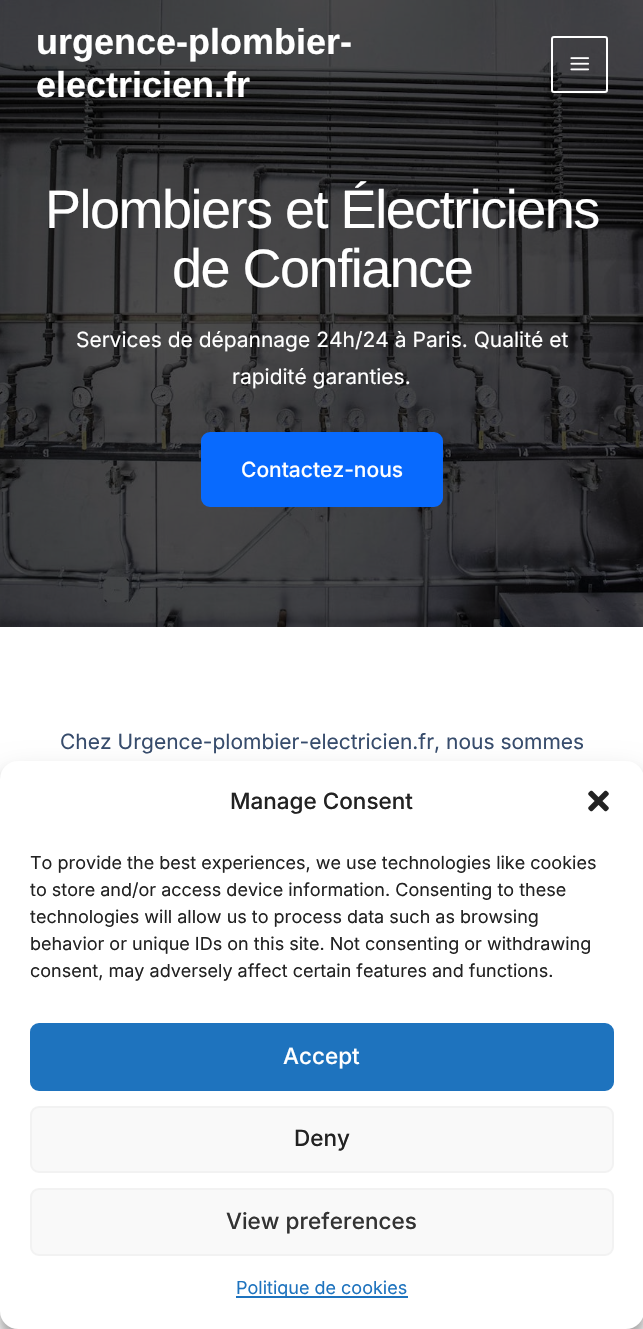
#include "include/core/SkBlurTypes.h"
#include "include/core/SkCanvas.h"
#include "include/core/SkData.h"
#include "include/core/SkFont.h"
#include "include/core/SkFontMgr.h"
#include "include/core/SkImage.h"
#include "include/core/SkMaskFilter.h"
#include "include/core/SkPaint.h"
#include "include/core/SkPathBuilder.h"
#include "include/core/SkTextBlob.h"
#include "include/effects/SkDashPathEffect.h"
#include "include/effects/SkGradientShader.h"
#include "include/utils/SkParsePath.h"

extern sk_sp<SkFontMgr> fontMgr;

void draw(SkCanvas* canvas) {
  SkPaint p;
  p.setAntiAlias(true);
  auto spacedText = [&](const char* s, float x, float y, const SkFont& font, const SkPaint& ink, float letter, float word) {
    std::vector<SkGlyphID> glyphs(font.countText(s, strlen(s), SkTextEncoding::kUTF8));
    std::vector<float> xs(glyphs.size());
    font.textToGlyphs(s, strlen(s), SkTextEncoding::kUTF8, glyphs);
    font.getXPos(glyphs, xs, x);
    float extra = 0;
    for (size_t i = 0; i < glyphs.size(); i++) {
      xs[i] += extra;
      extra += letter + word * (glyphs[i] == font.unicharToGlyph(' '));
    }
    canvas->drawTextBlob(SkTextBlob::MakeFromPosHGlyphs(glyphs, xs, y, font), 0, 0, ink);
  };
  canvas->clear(SK_ColorWHITE);
  canvas->drawImageRect(SkImages::DeferredFromEncodedData(SkData::MakeFromFileName("images/2.png")), SkRect::MakeLTRB(0, 0, 643, 627), SkSamplingOptions());
  p.setStyle(SkPaint::kStroke_Style);
  p.setStrokeWidth(2);
  p.setColor(SK_ColorWHITE);
  canvas->drawRoundRect(SkRect::MakeLTRB(552, 37, 607, 92), 2, 2, p);
  canvas->drawImageRect(SkImages::DeferredFromEncodedData(SkData::MakeFromFileName("images/1.png")), SkRect::MakeLTRB(570, 57, 590, 71), SkSamplingOptions());
  p.setStyle(SkPaint::kFill_Style);
  p.setColor(SkColorSetRGB(8, 106, 254));
  canvas->drawRoundRect(SkRect::MakeLTRB(202.5f, 433.5f, 441.5f, 505.5f), 7.5f, 7.5f, p);
  p.setStyle(SkPaint::kStroke_Style);
  p.setStrokeWidth(3);
  canvas->drawRoundRect(SkRect::MakeLTRB(202.5f, 433.5f, 441.5f, 505.5f), 7.5f, 7.5f, p);
  p.setStyle(SkPaint::kFill_Style);
  p.setColor(SkColorSetARGB(59, 0, 0, 0));
  p.setMaskFilter(SkMaskFilter::MakeBlur(kNormal_SkBlurStyle, 4.5f));
  canvas->drawRoundRect(SkRect::MakeLTRB(0, 770, 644, 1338), 18, 18, p);
  p.setMaskFilter(nullptr);
  p.setColor(SkColorSetARGB(48, 0, 0, 0));
  p.setMaskFilter(SkMaskFilter::MakeBlur(kNormal_SkBlurStyle, 15));
  canvas->drawRoundRect(SkRect::MakeLTRB(0, 776, 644, 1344), 18, 18, p);
  p.setMaskFilter(nullptr);
  p.setColor(SK_ColorWHITE);
  canvas->drawRoundRect(SkRect::MakeLTRB(0, 761, 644, 1329), 18, 18, p);
  canvas->drawImageRect(SkImages::DeferredFromEncodedData(SkData::MakeFromFileName("images/3.png")), SkRect::MakeLTRB(588, 790, 609, 812), SkSamplingOptions());
  p.setColor(SkColorSetRGB(30, 115, 190));
  canvas->drawRoundRect(SkRect::MakeLTRB(31, 1024, 613, 1090), 8, 8, p);
  p.setStyle(SkPaint::kStroke_Style);
  p.setStrokeWidth(2);
  canvas->drawRoundRect(SkRect::MakeLTRB(31, 1024, 613, 1090), 8, 8, p);
  p.setStyle(SkPaint::kFill_Style);
  p.setColor(SkColorSetRGB(249, 249, 249));
  canvas->drawRoundRect(SkRect::MakeLTRB(31, 1107, 613, 1172), 8, 8, p);
  p.setStyle(SkPaint::kStroke_Style);
  p.setColor(SkColorSetRGB(242, 242, 242));
  canvas->drawRoundRect(SkRect::MakeLTRB(31, 1107, 613, 1172), 8, 8, p);
  p.setStyle(SkPaint::kFill_Style);
  p.setColor(SkColorSetRGB(249, 249, 249));
  canvas->drawRoundRect(SkRect::MakeLTRB(31, 1189, 613, 1255), 8, 8, p);
  p.setStyle(SkPaint::kStroke_Style);
  p.setColor(SkColorSetRGB(242, 242, 242));
  canvas->drawRoundRect(SkRect::MakeLTRB(31, 1189, 613, 1255), 8, 8, p);
  p.setStyle(SkPaint::kFill_Style);
  p.setColor(SkColorSetRGB(30, 115, 190));
  canvas->drawRect(SkRect::MakeLTRB(236, 1296, 408, 1298), p);
  SkFont font1(fontMgr->matchFamilyStyle("Liberation Sans", SkFontStyle::Bold()), 36);
  font1.setSubpixel(true);
  p.setColor(SK_ColorWHITE);
  canvas->drawString("urgence-plombier-", 36, 54, font1, p);
  canvas->drawString("electricien.fr", 36, 97, font1, p);
  SkFont font2(fontMgr->matchFamilyStyle("Liberation Sans", SkFontStyle::Normal()), 54);
  font2.setSubpixel(true);
  spacedText("Plombiers et Électriciens", 45, 228, font2, p, -1.5f, 0);
  spacedText("de Confiance", 172, 287, font2, p, -1.5f, 0);
  SkFont font3(fontMgr->matchFamilyStyle("Inter", SkFontStyle::Normal()), 21);
  font3.setSubpixel(true);
  canvas->drawString("Services de dépannage 24h/24 à Paris. Qualité et", 76, 347, font3, p);
  canvas->drawString("rapidité garanties.", 232, 384, font3, p);
  SkFont font4(fontMgr->matchFamilyStyle("Inter", SkFontStyle(500, SkFontStyle::kNormal_Width, SkFontStyle::kUpright_Slant)), 21);
  font4.setSubpixel(true);
  canvas->drawString("Contactez-nous", 241, 477, font4, p);
  p.setColor(SkColorSetRGB(55, 76, 108));
  canvas->drawString("Chez Urgence-plombier-electricien.fr, nous sommes", 60, 749, font3, p);
  SkFont font5(fontMgr->matchFamilyStyle("Inter", SkFontStyle(500, SkFontStyle::kNormal_Width, SkFontStyle::kUpright_Slant)), 22.5f);
  font5.setSubpixel(true);
  p.setColor(SkColorSetRGB(34, 34, 34));
  canvas->drawString("Manage Consent", 230, 809, font5, p);
  SkFont font6(fontMgr->matchFamilyStyle("Inter", SkFontStyle::Normal()), 18);
  font6.setSubpixel(true);
  canvas->drawString("To provide the best experiences, we use technologies like cookies", 30, 869, font6, p);
  canvas->drawString("to store and/or access device information. Consenting to these", 30, 896, font6, p);
  canvas->drawString("technologies will allow us to process data such as browsing", 30, 923, font6, p);
  canvas->drawString("behavior or unique IDs on this site. Not consenting or withdrawing", 30, 950, font6, p);
  canvas->drawString("consent, may adversely affect certain features and functions.", 30, 977, font6, p);
  p.setColor(SK_ColorWHITE);
  canvas->drawString("Accept", 283, 1064, font5, p);
  p.setColor(SkColorSetRGB(34, 34, 34));
  canvas->drawString("Deny", 294, 1146, font5, p);
  p.setColor(SkColorSetRGB(51, 51, 51));
  canvas->drawString("View preferences", 226, 1229, font5, p);
  p.setColor(SkColorSetRGB(30, 115, 190));
  canvas->drawString("Politique de cookies", 236, 1294, font6, p);
}
